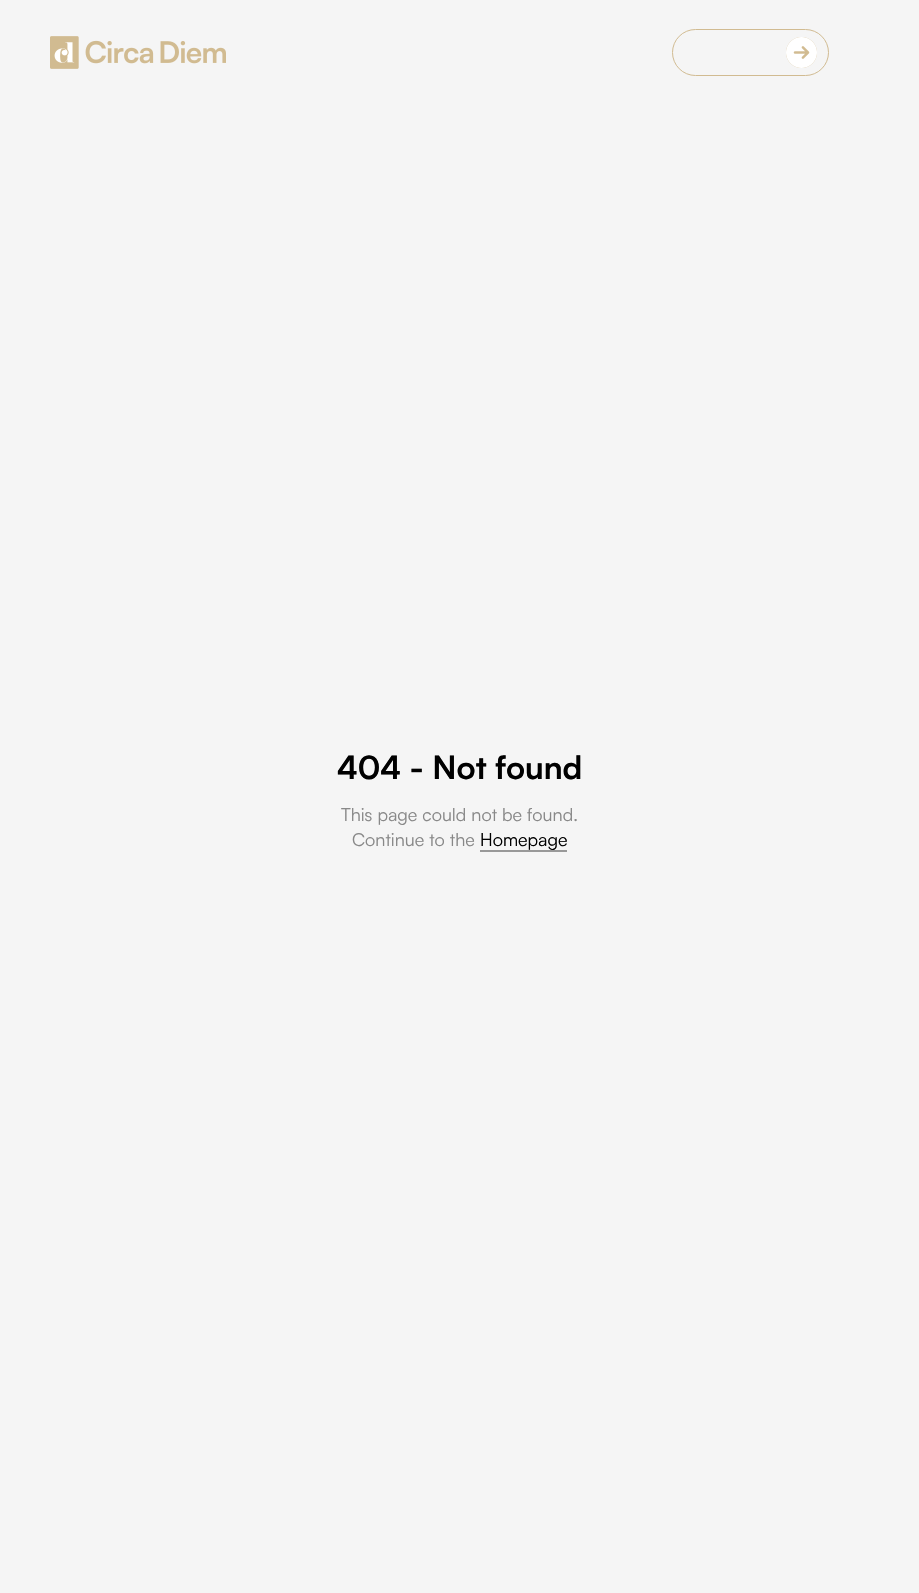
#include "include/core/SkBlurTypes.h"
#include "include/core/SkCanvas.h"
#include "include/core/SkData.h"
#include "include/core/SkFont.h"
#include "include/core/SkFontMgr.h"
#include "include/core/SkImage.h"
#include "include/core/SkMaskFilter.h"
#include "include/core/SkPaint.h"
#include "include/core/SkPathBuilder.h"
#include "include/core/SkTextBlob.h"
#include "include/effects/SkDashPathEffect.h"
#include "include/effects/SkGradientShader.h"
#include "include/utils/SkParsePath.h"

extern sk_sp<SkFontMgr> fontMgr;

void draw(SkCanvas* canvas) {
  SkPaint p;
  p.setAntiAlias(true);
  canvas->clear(SkColorSetRGB(245, 245, 245));
  canvas->drawImageRect(SkImages::DeferredFromEncodedData(SkData::MakeFromFileName("images/1.png")), SkRect::MakeLTRB(50, 36, 226, 69), SkSamplingOptions());
  p.setStyle(SkPaint::kStroke_Style);
  p.setStrokeWidth(1);
  p.setColor(SkColorSetRGB(209, 187, 145));
  canvas->drawRoundRect(SkRect::MakeLTRB(672.5f, 29.5f, 828.5f, 75.5f), 23, 23, p);
  canvas->drawImageRect(SkImages::DeferredFromEncodedData(SkData::MakeFromFileName("images/2.png")), SkRect::MakeLTRB(786, 37, 817, 68), SkSamplingOptions());
  p.setStyle(SkPaint::kFill_Style);
  p.setColor(SkColorSetRGB(153, 153, 153));
  canvas->drawRect(SkRect::MakeLTRB(480, 850, 567, 852), p);
  SkFont font1(fontMgr->matchFamilyStyle("Satoshi", SkFontStyle::Bold()), 32);
  font1.setSubpixel(true);
  p.setColor(SK_ColorBLACK);
  canvas->drawString("404 - Not found", 337, 779, font1, p);
  SkFont font2(fontMgr->matchFamilyStyle("Satoshi", SkFontStyle::Normal()), 18);
  font2.setSubpixel(true);
  p.setColor(SkColorSetRGB(136, 136, 136));
  canvas->drawString("This page could not be found.", 341, 821, font2, p);
  canvas->drawString("Continue to the", 352, 846, font2, p);
  p.setColor(SK_ColorBLACK);
  canvas->drawString("Homepage", 480, 846, font2, p);
}
